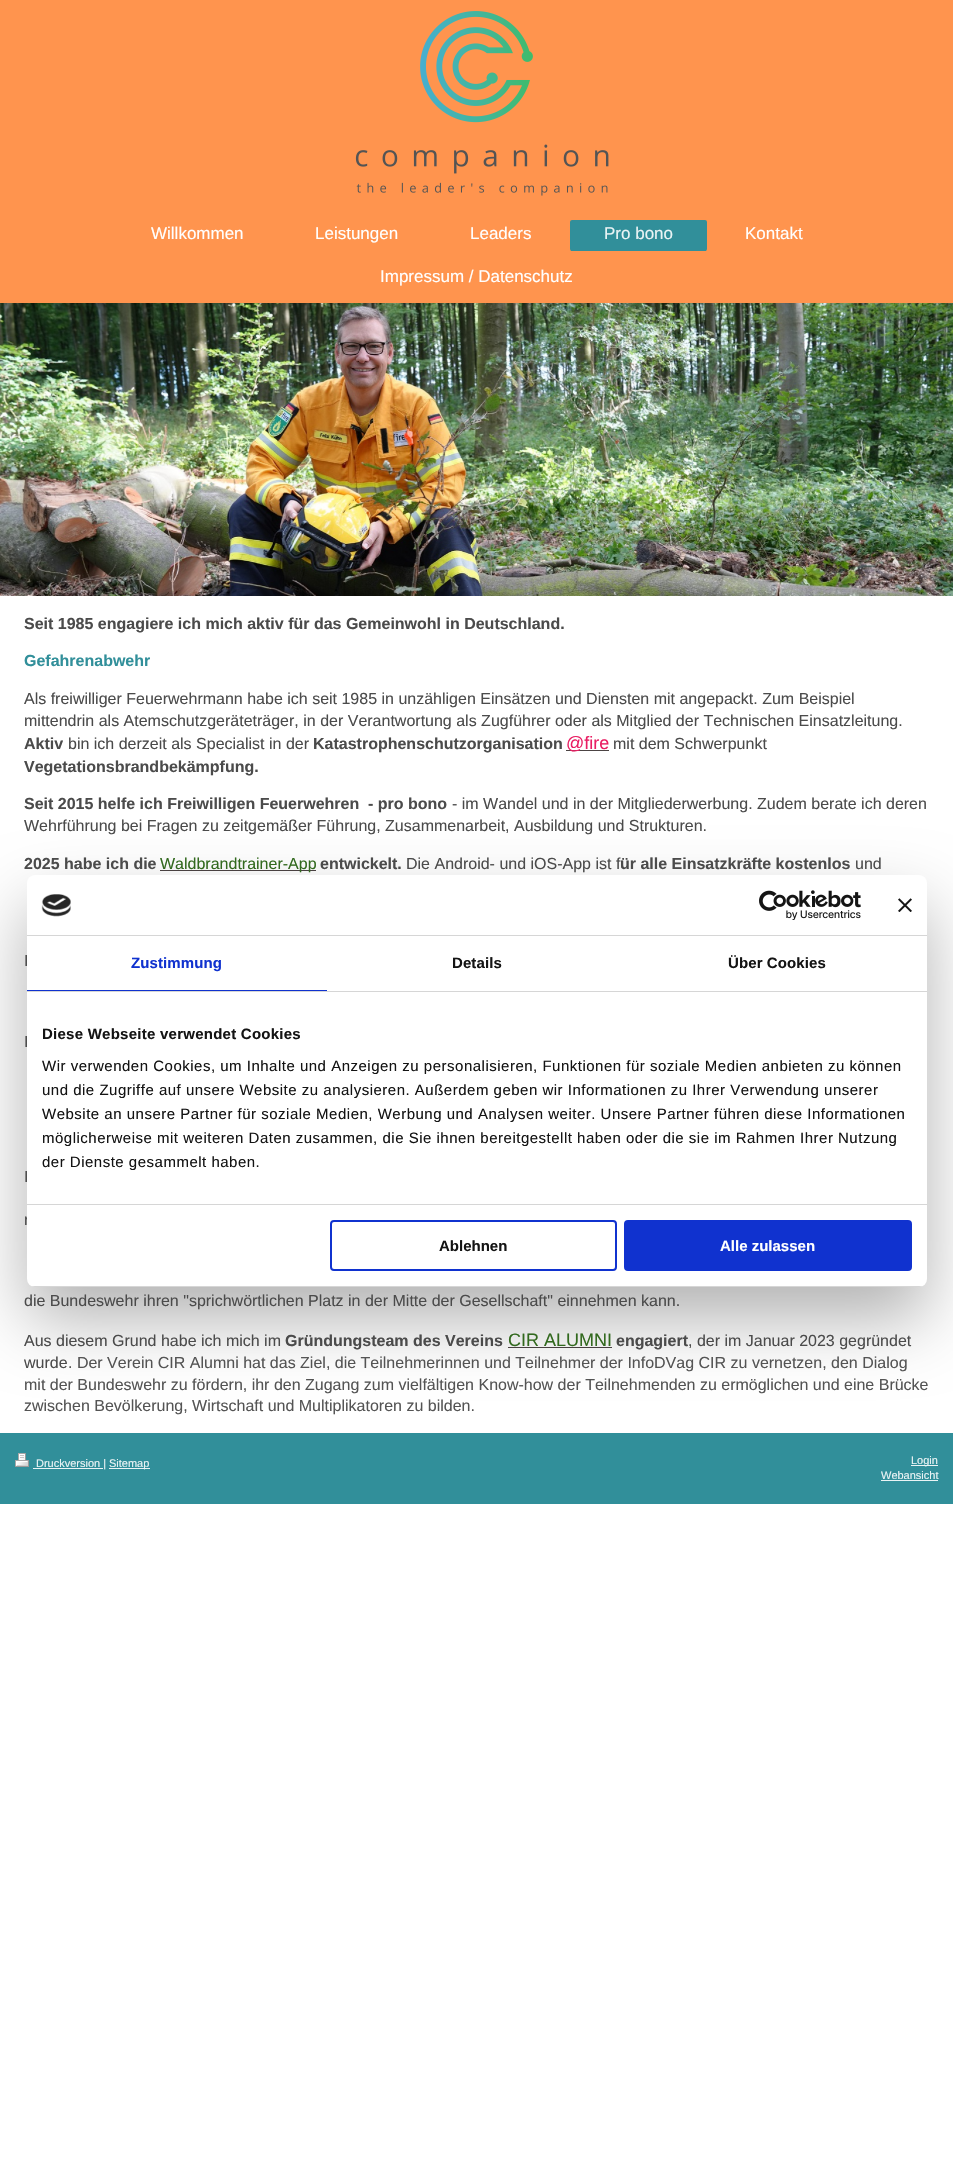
#include "include/core/SkBlurTypes.h"
#include "include/core/SkCanvas.h"
#include "include/core/SkData.h"
#include "include/core/SkFont.h"
#include "include/core/SkFontMgr.h"
#include "include/core/SkImage.h"
#include "include/core/SkMaskFilter.h"
#include "include/core/SkPaint.h"
#include "include/core/SkPathBuilder.h"
#include "include/core/SkTextBlob.h"
#include "include/effects/SkDashPathEffect.h"
#include "include/effects/SkGradientShader.h"
#include "include/utils/SkParsePath.h"

extern sk_sp<SkFontMgr> fontMgr;

void draw(SkCanvas* canvas) {
  SkPaint p;
  p.setAntiAlias(true);
  auto spacedText = [&](const char* s, float x, float y, const SkFont& font, const SkPaint& ink, float letter, float word) {
    std::vector<SkGlyphID> glyphs(font.countText(s, strlen(s), SkTextEncoding::kUTF8));
    std::vector<float> xs(glyphs.size());
    font.textToGlyphs(s, strlen(s), SkTextEncoding::kUTF8, glyphs);
    font.getXPos(glyphs, xs, x);
    float extra = 0;
    for (size_t i = 0; i < glyphs.size(); i++) {
      xs[i] += extra;
      extra += letter + word * (glyphs[i] == font.unicharToGlyph(' '));
    }
    canvas->drawTextBlob(SkTextBlob::MakeFromPosHGlyphs(glyphs, xs, y, font), 0, 0, ink);
  };
  canvas->clear(SK_ColorWHITE);
  p.setColor(SkColorSetRGB(255, 148, 78));
  canvas->drawRect(SkRect::MakeLTRB(0, 0, 953, 303), p);
  canvas->drawImageRect(SkImages::DeferredFromEncodedData(SkData::MakeFromFileName("images/1.png")), SkRect::MakeLTRB(355, 11, 609, 196), SkSamplingOptions());
  p.setColor(SkColorSetRGB(49, 143, 154));
  canvas->drawRoundRect(SkRect::MakeLTRB(570, 220, 707, 251), 2, 2, p);
  canvas->drawRect(SkRect::MakeLTRB(571, 250, 706, 251), p);
  canvas->drawImageRect(SkImages::DeferredFromEncodedData(SkData::MakeFromFileName("images/2.png")), SkRect::MakeLTRB(0, 303, 953, 596), SkSamplingOptions());
  p.setColor(SkColorSetRGB(76, 68, 68));
  canvas->drawRect(SkRect::MakeLTRB(566, 750, 609, 751), p);
  canvas->drawRect(SkRect::MakeLTRB(160, 870, 316, 871), p);
  canvas->drawRect(SkRect::MakeLTRB(508, 1347, 612, 1348), p);
  p.setColor(SkColorSetRGB(49, 143, 154));
  canvas->drawRect(SkRect::MakeLTRB(0, 1433, 953, 1504), p);
  canvas->drawImageRect(SkImages::DeferredFromEncodedData(SkData::MakeFromFileName("images/3.png")), SkRect::MakeLTRB(15, 1453, 29, 1467), SkSamplingOptions());
  p.setColor(SkColorSetRGB(234, 244, 245));
  canvas->drawRect(SkRect::MakeLTRB(33, 1468, 103, 1469), p);
  canvas->drawRect(SkRect::MakeLTRB(109, 1468, 150, 1469), p);
  canvas->drawRect(SkRect::MakeLTRB(911, 1465, 938, 1466), p);
  canvas->drawRect(SkRect::MakeLTRB(881, 1480, 938, 1481), p);
  p.setColor(SkColorSetARGB(77, 0, 0, 0));
  p.setMaskFilter(SkMaskFilter::MakeBlur(kNormal_SkBlurStyle, 34));
  canvas->drawRoundRect(SkRect::MakeLTRB(27, 907, 927, 1319), 8, 8, p);
  p.setMaskFilter(nullptr);
  SkFont font1(fontMgr->matchFamilyStyle("Liberation Sans", SkFontStyle::Normal()), 17);
  font1.setSubpixel(true);
  p.setColor(SK_ColorWHITE);
  canvas->drawString("Willkommen", 151, 239, font1, p);
  canvas->drawString("Leistungen", 315, 239, font1, p);
  canvas->drawString("Leaders", 470, 239, font1, p);
  p.setColor(SkColorSetRGB(234, 244, 245));
  canvas->drawString("Pro bono", 604, 239, font1, p);
  p.setColor(SK_ColorWHITE);
  canvas->drawString("Kontakt", 745, 239, font1, p);
  canvas->drawString("Impressum / Datenschutz", 380, 282, font1, p);
  SkFont font2(fontMgr->matchFamilyStyle("Liberation Sans", SkFontStyle::Bold()), 16);
  font2.setSubpixel(true);
  p.setColor(SkColorSetRGB(75, 75, 75));
  canvas->drawString("Seit 1985 engagiere ich mich aktiv für das Gemeinwohl in Deutschland.", 24, 629, font2, p);
  p.setColor(SkColorSetRGB(49, 143, 154));
  canvas->drawString("Gefahrenabwehr", 24, 666, font2, p);
  SkFont font3(fontMgr->matchFamilyStyle("Liberation Sans", SkFontStyle::Normal()), 16);
  font3.setSubpixel(true);
  p.setColor(SkColorSetRGB(75, 75, 75));
  canvas->drawString("Als freiwilliger Feuerwehrmann habe ich seit 1985 in unzähligen Einsätzen und Diensten mit angepackt. Zum Beispiel", 24, 704, font3, p);
  canvas->drawString("mittendrin als Atemschutzgeräteträger, in der Verantwortung als Zugführer oder als Mitglied der Technischen Einsatzleitung.", 24, 726, font3, p);
  canvas->drawString("Aktiv", 24, 749, font2, p);
  canvas->drawString("bin ich derzeit als Specialist in der", 68, 749, font3, p);
  canvas->drawString("Katastrophenschutzorganisation", 313, 749, font2, p);
  SkFont font4(fontMgr->matchFamilyStyle("Liberation Sans", SkFontStyle::Normal()), 18);
  font4.setSubpixel(true);
  p.setColor(SkColorSetRGB(233, 30, 99));
  canvas->drawString("@fire", 566, 749, font4, p);
  p.setColor(SkColorSetRGB(75, 75, 75));
  canvas->drawString("mit dem Schwerpunkt", 613, 749, font3, p);
  canvas->drawString("Vegetationsbrandbekämpfung.", 24, 772, font2, p);
  canvas->drawString("Seit 2015 helfe ich Freiwilligen Feuerwehren", 24, 809, font2, p);
  canvas->drawString("- pro bono", 368, 809, font2, p);
  canvas->drawString("- im Wandel und in der Mitgliederwerbung. Zudem berate ich deren", 452, 809, font3, p);
  canvas->drawString("Wehrführung bei Fragen zu zeitgemäßer Führung, Zusammenarbeit, Ausbildung und Strukturen.", 24, 831, font3, p);
  canvas->drawString("2025 habe ich die", 24, 869, font2, p);
  p.setColor(SkColorSetRGB(50, 105, 30));
  canvas->drawString("Waldbrandtrainer-App", 160, 869, font3, p);
  p.setColor(SkColorSetRGB(75, 75, 75));
  canvas->drawString("entwickelt.", 320, 869, font2, p);
  canvas->drawString("Die Android- und iOS-App ist f", 406, 869, font3, p);
  canvas->drawString("ür alle Einsatzkräfte kostenlos", 620, 869, font2, p);
  canvas->drawString("und", 855, 869, font3, p);
  canvas->drawString("I", 24, 966, font3, p);
  canvas->drawString("I", 24, 1047, font3, p);
  canvas->drawString("I", 24, 1182, font3, p);
  canvas->drawString("r", 24, 1225, font3, p);
  canvas->drawString("die Bundeswehr ihren \"sprichwörtlichen Platz in der Mitte der Gesellschaft\" einnehmen kann.", 24, 1306, font3, p);
  canvas->drawString("Aus diesem Grund habe ich mich im", 24, 1346, font3, p);
  canvas->drawString("Gründungsteam des Vereins", 285, 1346, font2, p);
  p.setColor(SkColorSetRGB(50, 105, 30));
  canvas->drawString("CIR ALUMNI", 508, 1346, font4, p);
  p.setColor(SkColorSetRGB(75, 75, 75));
  canvas->drawString("engagiert", 616, 1346, font2, p);
  canvas->drawString(", der im Januar 2023 gegründet", 688, 1346, font3, p);
  canvas->drawString("wurde", 24, 1368, font3, p);
  p.setColor(SkColorSetRGB(84, 84, 84));
  canvas->drawString(". Der Verein CIR Alumni hat das Ziel, die Teilnehmerinnen und Teilnehmer der InfoDVag CIR zu vernetzen, den Dialog", 68, 1368, font3, p);
  canvas->drawString("mit der Bundeswehr zu fördern, ihr den Zugang zum vielfältigen Know-how der Teilnehmenden zu ermöglichen und eine Brücke", 24, 1390, font3, p);
  canvas->drawString("zwischen Bevölkerung, Wirtschaft und Multiplikatoren zu bilden.", 24, 1411, font3, p);
  SkFont font5(fontMgr->matchFamilyStyle("Liberation Sans", SkFontStyle::Normal()), 11);
  font5.setSubpixel(true);
  p.setColor(SkColorSetRGB(234, 244, 245));
  canvas->drawString("Druckversion |", 36, 1467, font5, p);
  canvas->drawString("Sitemap", 109, 1467, font5, p);
  canvas->drawString("Login", 911, 1464, font5, p);
  canvas->drawString("Webansicht", 881, 1479, font5, p);
  p.setColor(SK_ColorWHITE);
  canvas->drawRoundRect(SkRect::MakeLTRB(27, 875, 927, 1287), 8, 8, p);
  p.setColor(SkColorSetRGB(214, 214, 214));
  canvas->drawRect(SkRect::MakeLTRB(27, 935, 927, 936), p);
  canvas->drawImageRect(SkImages::DeferredFromEncodedData(SkData::MakeFromFileName("images/4.png")), SkRect::MakeLTRB(41, 894, 71, 917), SkSamplingOptions());
  canvas->drawImageRect(SkImages::DeferredFromEncodedData(SkData::MakeFromFileName("images/5.png")), SkRect::MakeLTRB(759, 890, 861, 920), SkSamplingOptions());
  canvas->drawImageRect(SkImages::DeferredFromEncodedData(SkData::MakeFromFileName("images/6.png")), SkRect::MakeLTRB(898, 898, 912, 912), SkSamplingOptions());
  canvas->drawRect(SkRect::MakeLTRB(27, 991, 927, 992), p);
  p.setColor(SkColorSetRGB(16, 50, 207));
  canvas->drawRect(SkRect::MakeLTRB(27, 990, 327, 991), p);
  SkFont font6(fontMgr->matchFamilyStyle("Liberation Sans", SkFontStyle::Bold()), 15);
  font6.setSubpixel(true);
  spacedText("Zustimmung", 131, 968, font6, p, 0.1f, 0);
  p.setColor(SkColorSetRGB(20, 20, 20));
  spacedText("Details", 452, 968, font6, p, 0.1f, 0);
  spacedText("Über Cookies", 728, 968, font6, p, 0.1f, 0);
  p.setColor(SkColorSetRGB(214, 214, 214));
  canvas->drawRect(SkRect::MakeLTRB(27, 1204, 927, 1205), p);
  p.setColor(SkColorSetRGB(20, 20, 20));
  spacedText("Diese Webseite verwendet Cookies", 42, 1039, font6, p, 0.25f, 0);
  SkFont font7(fontMgr->matchFamilyStyle("Liberation Sans", SkFontStyle::Normal()), 15);
  font7.setSubpixel(true);
  spacedText("Wir verwenden Cookies, um Inhalte und Anzeigen zu personalisieren, Funktionen für soziale Medien anbieten zu können", 42, 1071, font7, p, 0.5f, 0);
  spacedText("und die Zugriffe auf unsere Website zu analysieren. Außerdem geben wir Informationen zu Ihrer Verwendung unserer", 42, 1095, font7, p, 0.5f, 0);
  spacedText("Website an unsere Partner für soziale Medien, Werbung und Analysen weiter. Unsere Partner führen diese Informationen", 42, 1119, font7, p, 0.5f, 0);
  spacedText("möglicherweise mit weiteren Daten zusammen, die Sie ihnen bereitgestellt haben oder die sie im Rahmen Ihrer Nutzung", 42, 1143, font7, p, 0.5f, 0);
  spacedText("der Dienste gesammelt haben.", 42, 1167, font7, p, 0.5f, 0);
  canvas->save();
  canvas->clipPath(SkPathBuilder().moveTo(35, 875).lineTo(919, 875).cubicTo(923.5f, 875, 927, 878.5f, 927, 883).lineTo(927, 1279).cubicTo(927, 1283.5f, 923.5f, 1287, 919, 1287).lineTo(35, 1287).cubicTo(30.5f, 1287, 27, 1283.5f, 27, 1279).lineTo(27, 883).cubicTo(27, 878.5f, 30.5f, 875, 35, 875).close().detach(), true);
  p.setColor(SkColorSetRGB(214, 214, 214));
  canvas->drawRect(SkRect::MakeLTRB(27, 1286, 927, 1287), p);
  canvas->restore();
  p.setStyle(SkPaint::kStroke_Style);
  p.setStrokeWidth(2);
  p.setColor(SkColorSetRGB(16, 50, 207));
  canvas->drawRoundRect(SkRect::MakeLTRB(331, 1221, 616, 1270), 3, 3, p);
  p.setStyle(SkPaint::kFill_Style);
  p.setColor(SkColorSetRGB(20, 20, 20));
  canvas->drawString("Ablehnen", 439, 1251, font6, p);
  p.setColor(SkColorSetRGB(16, 50, 207));
  canvas->drawRoundRect(SkRect::MakeLTRB(625, 1221, 911, 1270), 3, 3, p);
  p.setStyle(SkPaint::kStroke_Style);
  canvas->drawRoundRect(SkRect::MakeLTRB(625, 1221, 911, 1270), 3, 3, p);
  p.setStyle(SkPaint::kFill_Style);
  p.setColor(SK_ColorWHITE);
  canvas->drawString("Alle zulassen", 720, 1251, font6, p);
}
